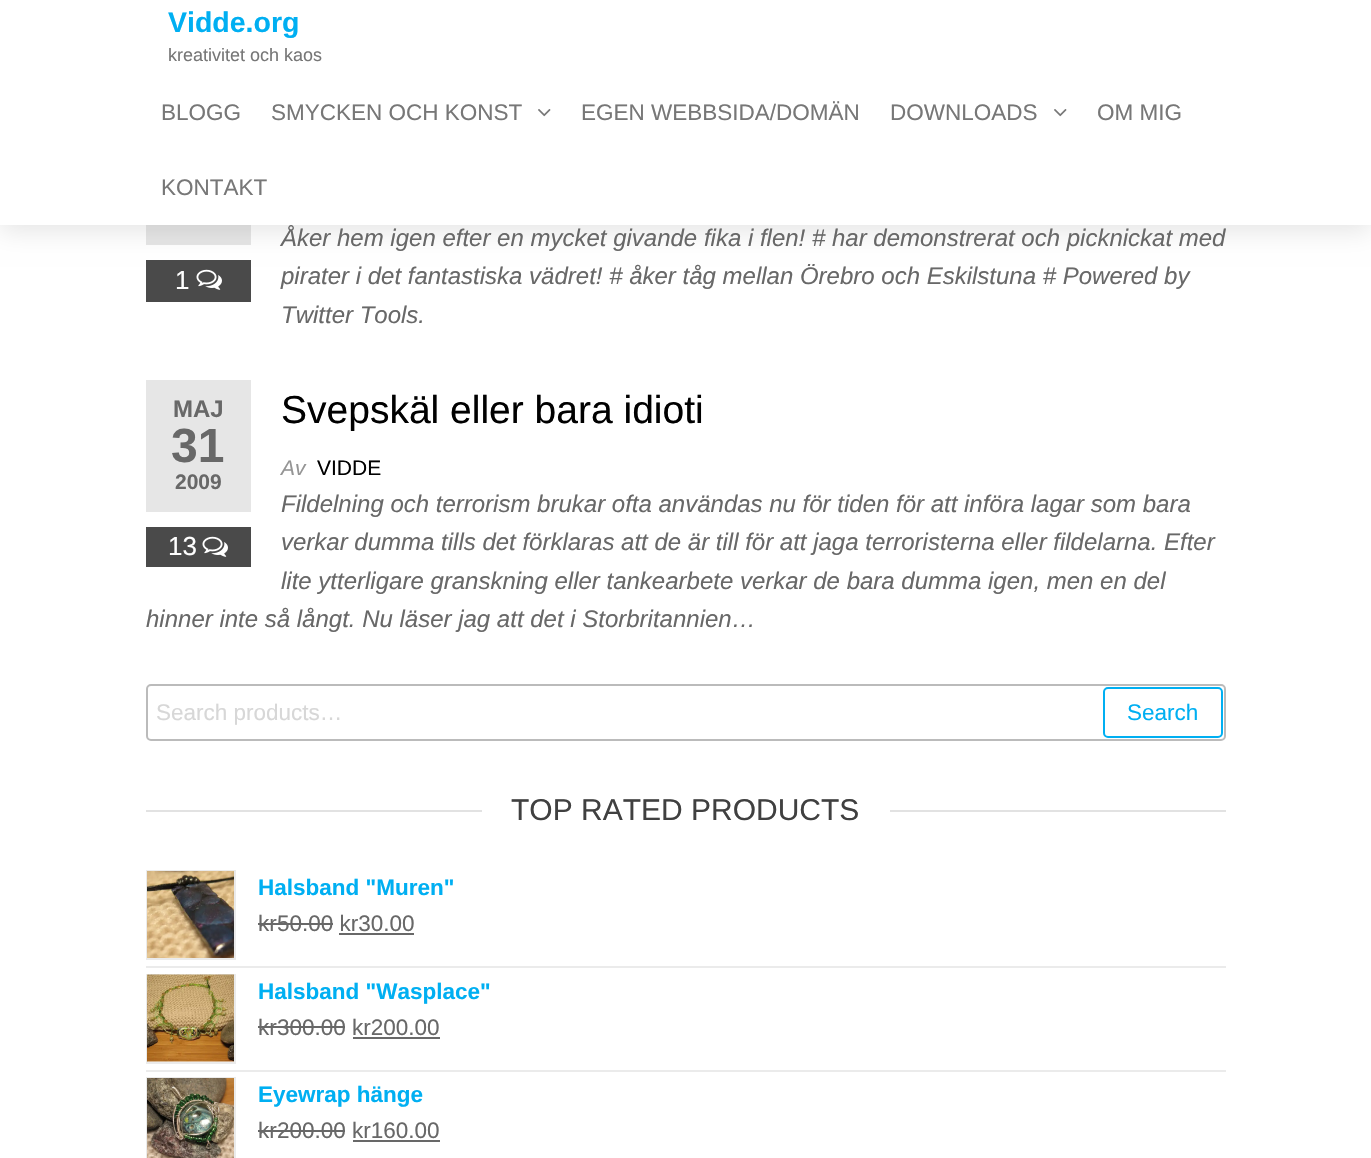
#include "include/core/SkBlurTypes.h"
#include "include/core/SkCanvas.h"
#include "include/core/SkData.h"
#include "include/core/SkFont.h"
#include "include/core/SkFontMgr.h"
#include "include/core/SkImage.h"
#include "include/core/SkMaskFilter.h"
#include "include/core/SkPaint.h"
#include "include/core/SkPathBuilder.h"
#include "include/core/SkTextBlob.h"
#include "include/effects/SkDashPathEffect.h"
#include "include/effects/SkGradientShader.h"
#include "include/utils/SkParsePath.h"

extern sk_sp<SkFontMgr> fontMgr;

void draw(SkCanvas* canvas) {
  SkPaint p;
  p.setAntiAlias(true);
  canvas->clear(SK_ColorWHITE);
  p.setColor(SkColorSetRGB(230, 230, 230));
  canvas->drawRect(SkRect::MakeLTRB(146, 225, 251, 245), p);
  p.setColor(SkColorSetRGB(74, 74, 74));
  canvas->drawRect(SkRect::MakeLTRB(146, 260, 251, 302), p);
  p.setColor(SkColorSetARGB(26, 0, 0, 0));
  p.setMaskFilter(SkMaskFilter::MakeBlur(kNormal_SkBlurStyle, 12));
  canvas->drawRect(SkRect::MakeLTRB(0, 6, 1371, 231), p);
  p.setMaskFilter(nullptr);
  p.setColor(SK_ColorWHITE);
  canvas->drawRect(SkRect::MakeLTRB(0, 0, 1371, 225), p);
  canvas->drawImageRect(SkImages::DeferredFromEncodedData(SkData::MakeFromFileName("images/1.png")), SkRect::MakeLTRB(538, 109, 551, 117), SkSamplingOptions());
  canvas->drawImageRect(SkImages::DeferredFromEncodedData(SkData::MakeFromFileName("images/1.png")), SkRect::MakeLTRB(1054, 109, 1067, 117), SkSamplingOptions());
  canvas->drawImageRect(SkImages::DeferredFromEncodedData(SkData::MakeFromFileName("images/2.png")), SkRect::MakeLTRB(196, 269, 222, 290), SkSamplingOptions());
  p.setColor(SkColorSetRGB(230, 230, 230));
  canvas->drawRect(SkRect::MakeLTRB(146, 380, 251, 512), p);
  p.setColor(SkColorSetRGB(74, 74, 74));
  canvas->drawRect(SkRect::MakeLTRB(146, 527, 251, 567), p);
  canvas->drawImageRect(SkImages::DeferredFromEncodedData(SkData::MakeFromFileName("images/2.png")), SkRect::MakeLTRB(202, 536, 228, 557), SkSamplingOptions());
  p.setStyle(SkPaint::kStroke_Style);
  p.setStrokeWidth(2);
  p.setColor(SkColorSetRGB(187, 187, 187));
  canvas->drawRoundRect(SkRect::MakeLTRB(147, 685, 1225, 740), 4, 4, p);
  p.setColor(SkColorSetRGB(0, 175, 242));
  canvas->drawRoundRect(SkRect::MakeLTRB(1104, 688, 1222, 737), 4, 4, p);
  p.setStyle(SkPaint::kFill_Style);
  p.setColor(SkColorSetRGB(226, 226, 226));
  canvas->drawRect(SkRect::MakeLTRB(146, 810, 1226, 812), p);
  p.setColor(SK_ColorWHITE);
  canvas->drawRect(SkRect::MakeLTRB(482, 810, 890, 812), p);
  p.setColor(SkColorSetRGB(235, 235, 235));
  canvas->drawRect(SkRect::MakeLTRB(146, 966, 1226, 968), p);
  p.setStyle(SkPaint::kStroke_Style);
  canvas->drawRect(SkRect::MakeLTRB(147, 871, 235, 959), p);
  canvas->drawImageRect(SkImages::DeferredFromEncodedData(SkData::MakeFromFileName("images/3.png")), SkRect::MakeLTRB(147, 871, 234, 958), SkSamplingOptions());
  p.setStyle(SkPaint::kFill_Style);
  p.setColor(SkColorSetRGB(104, 104, 104));
  canvas->drawRect(SkRect::MakeLTRB(258, 923, 278, 925), p);
  canvas->drawRect(SkRect::MakeLTRB(278, 923, 333, 925), p);
  canvas->drawRect(SkRect::MakeLTRB(339, 933, 414, 935), p);
  p.setColor(SkColorSetRGB(235, 235, 235));
  canvas->drawRect(SkRect::MakeLTRB(146, 1070, 1226, 1072), p);
  p.setStyle(SkPaint::kStroke_Style);
  canvas->drawRect(SkRect::MakeLTRB(147, 975, 235, 1063), p);
  canvas->drawImageRect(SkImages::DeferredFromEncodedData(SkData::MakeFromFileName("images/4.png")), SkRect::MakeLTRB(147, 974, 234, 1062), SkSamplingOptions());
  p.setStyle(SkPaint::kFill_Style);
  p.setColor(SkColorSetRGB(104, 104, 104));
  canvas->drawRect(SkRect::MakeLTRB(258, 1026, 278, 1028), p);
  canvas->drawRect(SkRect::MakeLTRB(278, 1026, 345, 1028), p);
  canvas->drawRect(SkRect::MakeLTRB(353, 1037, 440, 1039), p);
  p.setStyle(SkPaint::kStroke_Style);
  p.setColor(SkColorSetRGB(235, 235, 235));
  canvas->drawRect(SkRect::MakeLTRB(147, 1078, 235, 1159), p);
  canvas->drawImageRect(SkImages::DeferredFromEncodedData(SkData::MakeFromFileName("images/5.png")), SkRect::MakeLTRB(147, 1078, 234, 1158), SkSamplingOptions());
  p.setStyle(SkPaint::kFill_Style);
  p.setColor(SkColorSetRGB(104, 104, 104));
  canvas->drawRect(SkRect::MakeLTRB(258, 1130, 278, 1132), p);
  canvas->drawRect(SkRect::MakeLTRB(278, 1130, 345, 1132), p);
  canvas->drawRect(SkRect::MakeLTRB(353, 1140, 440, 1142), p);
  SkFont font1(fontMgr->matchFamilyStyle("Liberation Sans", SkFontStyle::Bold()), 28.5f);
  font1.setSubpixel(true);
  p.setColor(SkColorSetRGB(0, 175, 242));
  canvas->drawString("Vidde.org", 168, 32, font1, p);
  SkFont font2(fontMgr->matchFamilyStyle("Liberation Sans", SkFontStyle::Normal()), 18);
  font2.setSubpixel(true);
  p.setColor(SkColorSetRGB(119, 119, 119));
  canvas->drawString("kreativitet och kaos", 168, 61, font2, p);
  SkFont font3(fontMgr->matchFamilyStyle("Liberation Sans", SkFontStyle::Normal()), 22.5f);
  font3.setSubpixel(true);
  canvas->drawString("BLOGG", 161, 120, font3, p);
  canvas->drawString("SMYCKEN OCH KONST", 271, 120, font3, p);
  canvas->drawString("EGEN WEBBSIDA/DOMÄN", 581, 120, font3, p);
  canvas->drawString("DOWNLOADS", 890, 120, font3, p);
  canvas->drawString("OM MIG", 1097, 120, font3, p);
  canvas->drawString("KONTAKT", 161, 195, font3, p);
  SkFont font4(fontMgr->matchFamilyStyle("Liberation Sans", SkFontStyle::Normal()), 26);
  font4.setSubpixel(true);
  p.setColor(SK_ColorWHITE);
  canvas->drawString("1", 175, 289, font4, p);
  SkFont font5(fontMgr->matchFamilyStyle("Liberation Sans", SkFontStyle::Italic()), 24);
  font5.setSubpixel(true);
  p.setColor(SkColorSetRGB(104, 104, 104));
  canvas->drawString("Åker hem igen efter en mycket givande fika i flen! # har demonstrerat och picknickat med", 281, 246, font5, p);
  canvas->drawString("pirater i det fantastiska vädret! # åker tåg mellan Örebro och Eskilstuna # Powered by", 281, 284, font5, p);
  canvas->drawString("Twitter Tools.", 281, 323, font5, p);
  SkFont font6(fontMgr->matchFamilyStyle("Liberation Sans", SkFontStyle::Bold()), 24);
  font6.setSubpixel(true);
  canvas->drawString("MAJ", 173, 417, font6, p);
  SkFont font7(fontMgr->matchFamilyStyle("Liberation Sans", SkFontStyle::Bold()), 48);
  font7.setSubpixel(true);
  canvas->drawString("31", 171, 462, font7, p);
  SkFont font8(fontMgr->matchFamilyStyle("Liberation Sans", SkFontStyle::Bold()), 21);
  font8.setSubpixel(true);
  canvas->drawString("2009", 175, 489, font8, p);
  p.setColor(SK_ColorWHITE);
  canvas->drawString("13", 168, 555, font4, p);
  SkFont font9(fontMgr->matchFamilyStyle("Liberation Sans", SkFontStyle::Normal()), 39);
  font9.setSubpixel(true);
  p.setColor(SK_ColorBLACK);
  canvas->drawString("Svepskäl eller bara idioti", 281, 423, font9, p);
  SkFont font10(fontMgr->matchFamilyStyle("Liberation Sans", SkFontStyle::Italic()), 21);
  font10.setSubpixel(true);
  p.setColor(SkColorSetRGB(149, 149, 149));
  canvas->drawString("Av", 281, 475, font10, p);
  SkFont font11(fontMgr->matchFamilyStyle("Liberation Sans", SkFontStyle::Normal()), 21);
  font11.setSubpixel(true);
  p.setColor(SK_ColorBLACK);
  canvas->drawString("VIDDE", 317, 475, font11, p);
  p.setColor(SkColorSetRGB(104, 104, 104));
  canvas->drawString("Fildelning och terrorism brukar ofta användas nu för tiden för att införa lagar som bara", 281, 512, font5, p);
  canvas->drawString("verkar dumma tills det förklaras att de är till för att jaga terroristerna eller fildelarna. Efter", 281, 550, font5, p);
  canvas->drawString("lite ytterligare granskning eller tankearbete verkar de bara dumma igen, men en del", 281, 589, font5, p);
  canvas->drawString("hinner inte så långt. Nu läser jag att det i Storbritannien…", 146, 627, font5, p);
  p.setColor(SkColorSetRGB(215, 215, 215));
  canvas->drawString("Search products…", 156, 720, font3, p);
  p.setColor(SkColorSetRGB(0, 175, 242));
  canvas->drawString("Search", 1127, 720, font3, p);
  SkFont font12(fontMgr->matchFamilyStyle("Liberation Sans", SkFontStyle::Normal()), 30);
  font12.setSubpixel(true);
  p.setColor(SkColorSetRGB(64, 64, 64));
  canvas->drawString("TOP RATED PRODUCTS", 511, 820, font12, p);
  SkFont font13(fontMgr->matchFamilyStyle("Liberation Sans", SkFontStyle::Bold()), 22.5f);
  font13.setSubpixel(true);
  p.setColor(SkColorSetRGB(0, 175, 242));
  canvas->drawString("Halsband \"Muren\"", 258, 895, font13, p);
  p.setColor(SkColorSetRGB(104, 104, 104));
  canvas->drawString("kr", 258, 931, font3, p);
  canvas->drawString("50.00 kr30.00", 277, 931, font3, p);
  p.setColor(SkColorSetRGB(0, 175, 242));
  canvas->drawString("Halsband \"Wasplace\"", 258, 999, font13, p);
  p.setColor(SkColorSetRGB(104, 104, 104));
  canvas->drawString("kr", 258, 1035, font3, p);
  canvas->drawString("300.00 kr200.00", 277, 1035, font3, p);
  p.setColor(SkColorSetRGB(0, 175, 242));
  canvas->drawString("Eyewrap hänge", 258, 1102, font13, p);
  p.setColor(SkColorSetRGB(104, 104, 104));
  canvas->drawString("kr", 258, 1138, font3, p);
  canvas->drawString("200.00 kr160.00", 277, 1138, font3, p);
}
